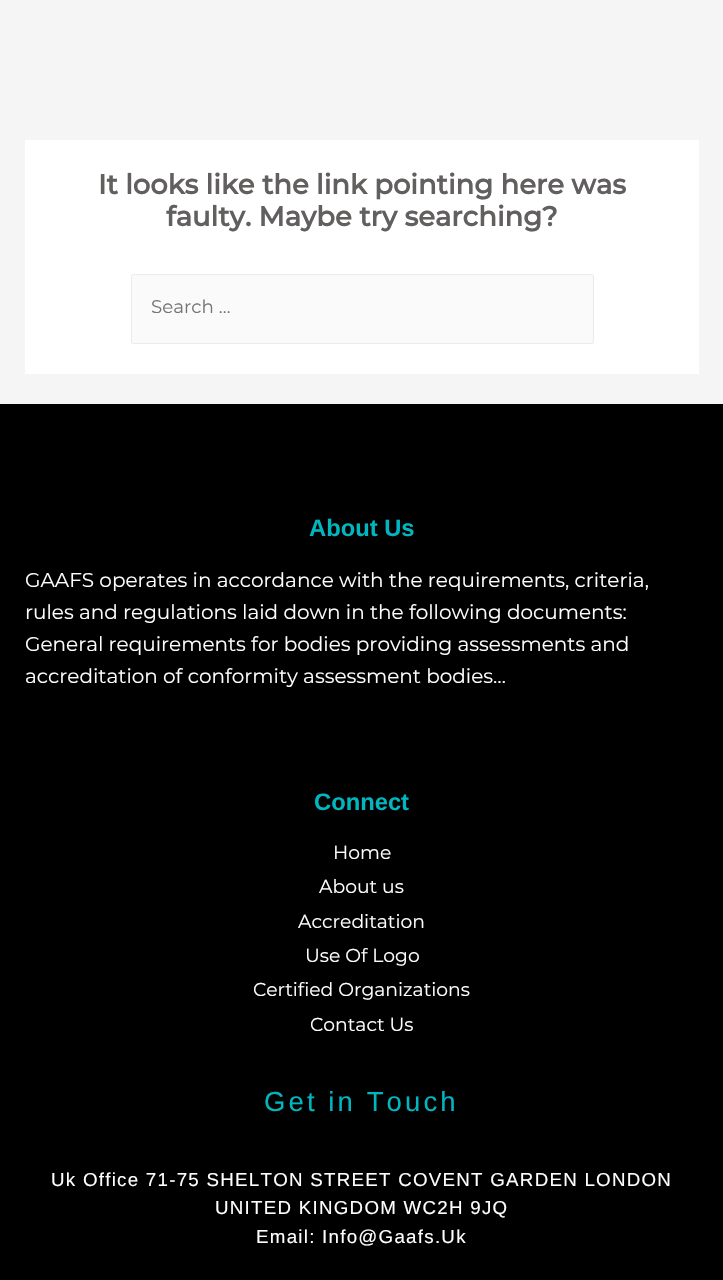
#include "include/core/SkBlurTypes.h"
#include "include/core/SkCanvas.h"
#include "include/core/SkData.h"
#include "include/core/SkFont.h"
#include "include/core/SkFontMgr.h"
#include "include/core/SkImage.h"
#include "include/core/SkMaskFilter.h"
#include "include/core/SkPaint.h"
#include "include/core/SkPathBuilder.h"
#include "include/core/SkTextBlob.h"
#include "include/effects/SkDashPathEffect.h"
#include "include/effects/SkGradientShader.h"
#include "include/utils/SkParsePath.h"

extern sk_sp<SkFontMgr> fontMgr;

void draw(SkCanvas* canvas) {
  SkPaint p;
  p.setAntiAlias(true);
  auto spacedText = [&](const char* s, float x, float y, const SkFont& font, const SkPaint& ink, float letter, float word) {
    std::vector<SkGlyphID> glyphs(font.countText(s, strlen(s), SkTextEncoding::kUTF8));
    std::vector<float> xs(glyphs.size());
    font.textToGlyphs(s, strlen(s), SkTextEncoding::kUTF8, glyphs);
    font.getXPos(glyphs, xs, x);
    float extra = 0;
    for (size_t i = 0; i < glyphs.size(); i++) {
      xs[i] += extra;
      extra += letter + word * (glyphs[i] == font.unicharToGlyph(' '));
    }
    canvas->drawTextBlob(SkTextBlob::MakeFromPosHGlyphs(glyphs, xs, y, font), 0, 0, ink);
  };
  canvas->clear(SkColorSetRGB(245, 245, 245));
  p.setColor(SK_ColorWHITE);
  canvas->drawRect(SkRect::MakeLTRB(25, 140, 699, 374), p);
  p.setColor(SkColorSetRGB(250, 250, 250));
  canvas->drawRoundRect(SkRect::MakeLTRB(131.5f, 274.5f, 593.5f, 343.5f), 2, 2, p);
  p.setStyle(SkPaint::kStroke_Style);
  p.setStrokeWidth(1);
  p.setColor(SkColorSetRGB(234, 234, 234));
  canvas->drawRoundRect(SkRect::MakeLTRB(131.5f, 274.5f, 593.5f, 343.5f), 2, 2, p);
  p.setStyle(SkPaint::kFill_Style);
  p.setColor(SK_ColorBLACK);
  canvas->drawRect(SkRect::MakeLTRB(0, 404, 723, 1280), p);
  SkFont font1(fontMgr->matchFamilyStyle("Montserrat", SkFontStyle::Bold()), 27.4f);
  font1.setSubpixel(true);
  p.setColor(SkColorSetRGB(98, 95, 95));
  canvas->drawString("It looks like the link pointing here was", 98, 194, font1, p);
  canvas->drawString("faulty. Maybe try searching?", 166, 226, font1, p);
  SkFont font2(fontMgr->matchFamilyStyle("Montserrat", SkFontStyle::Normal()), 18.25f);
  font2.setSubpixel(true);
  p.setColor(SkColorSetRGB(117, 117, 117));
  canvas->drawString("Search …", 151, 313, font2, p);
  SkFont font3(fontMgr->matchFamilyStyle("Liberation Sans", SkFontStyle::Bold()), 23.75f);
  font3.setSubpixel(true);
  p.setColor(SkColorSetRGB(2, 182, 192));
  canvas->drawString("About Us", 309, 536, font3, p);
  SkFont font4(fontMgr->matchFamilyStyle("Montserrat", SkFontStyle::Normal()), 20);
  font4.setSubpixel(true);
  p.setColor(SK_ColorWHITE);
  canvas->drawString("GAAFS operates in accordance with the requirements, criteria,", 25, 587, font4, p);
  canvas->drawString("rules and regulations laid down in the following documents:", 25, 619, font4, p);
  canvas->drawString("General requirements for bodies providing assessments and", 25, 651, font4, p);
  canvas->drawString("accreditation of conformity assessment bodies…", 25, 683, font4, p);
  p.setColor(SkColorSetRGB(2, 182, 192));
  canvas->drawString("Connect", 314, 810, font3, p);
  SkFont font5(fontMgr->matchFamilyStyle("Montserrat", SkFontStyle::Normal()), 18.75f);
  font5.setSubpixel(true);
  p.setColor(SK_ColorWHITE);
  canvas->drawString("Home", 333, 859, font5, p);
  canvas->drawString("About us", 319, 893, font5, p);
  canvas->drawString("Accreditation", 298, 928, font5, p);
  canvas->drawString("Use Of Logo", 305, 962, font5, p);
  canvas->drawString("Certified Organizations", 253, 996, font5, p);
  canvas->drawString("Contact Us", 310, 1031, font5, p);
  SkFont font6(fontMgr->matchFamilyStyle("Liberation Sans", SkFontStyle::Normal()), 27.5f);
  font6.setSubpixel(true);
  p.setColor(SkColorSetRGB(2, 182, 192));
  spacedText("Get in Touch", 264, 1111, font6, p, 3.1f, 0);
  SkFont font7(fontMgr->matchFamilyStyle("Liberation Sans", SkFontStyle::Normal()), 18.75f);
  font7.setSubpixel(true);
  p.setColor(SK_ColorWHITE);
  spacedText("Uk Office 71-75 SHELTON STREET COVENT GARDEN LONDON", 51, 1186, font7, p, 1.25f, 0);
  spacedText("UNITED KINGDOM WC2H 9JQ", 215, 1214, font7, p, 1.25f, 0);
  spacedText("Email: Info@Gaafs.Uk", 256, 1243, font7, p, 1.25f, 0);
}
